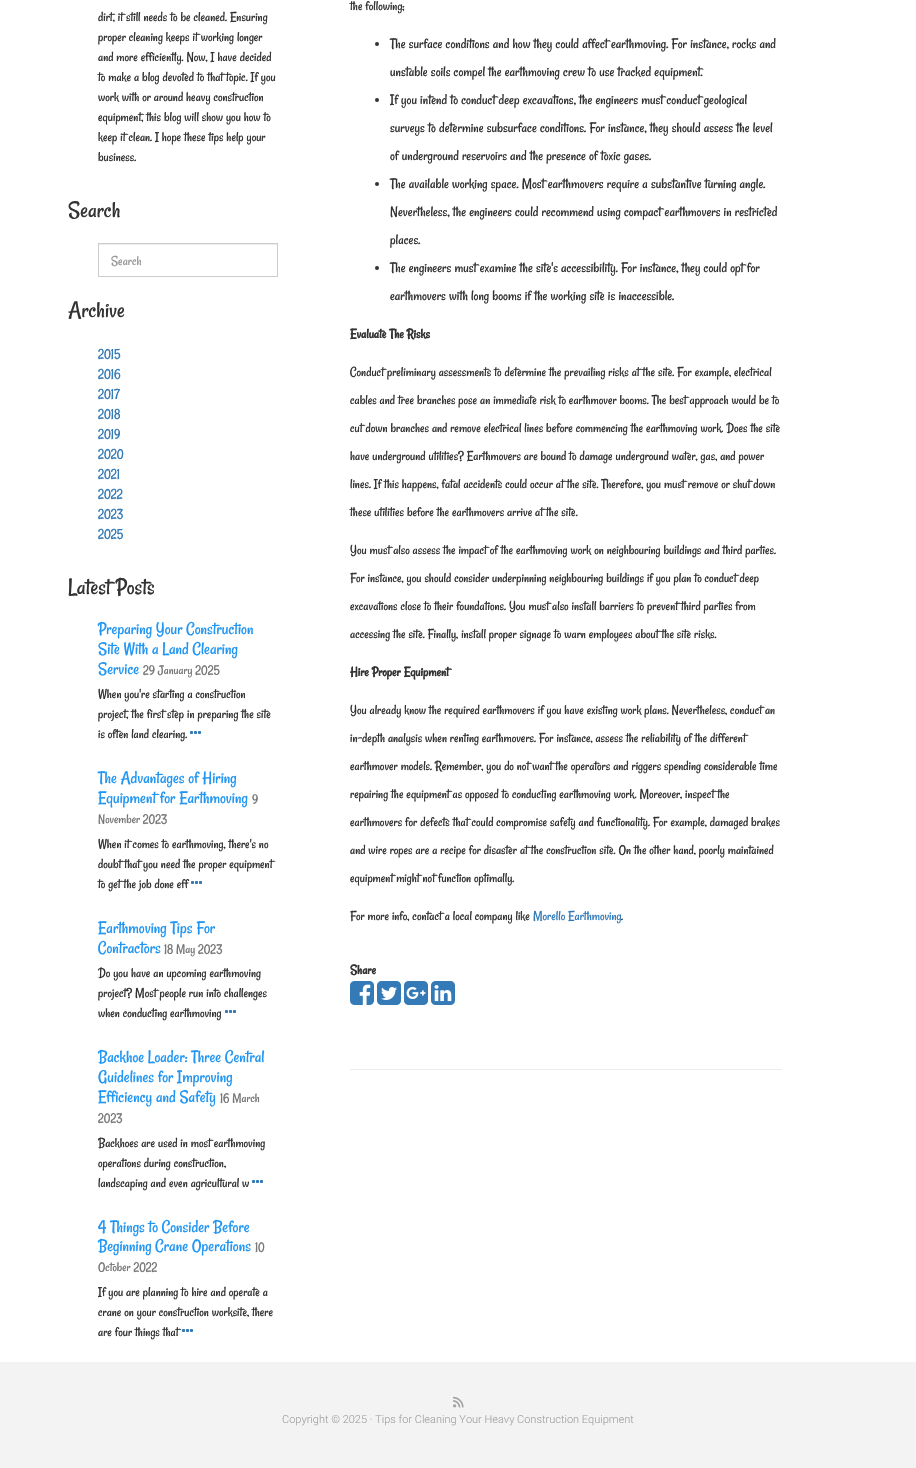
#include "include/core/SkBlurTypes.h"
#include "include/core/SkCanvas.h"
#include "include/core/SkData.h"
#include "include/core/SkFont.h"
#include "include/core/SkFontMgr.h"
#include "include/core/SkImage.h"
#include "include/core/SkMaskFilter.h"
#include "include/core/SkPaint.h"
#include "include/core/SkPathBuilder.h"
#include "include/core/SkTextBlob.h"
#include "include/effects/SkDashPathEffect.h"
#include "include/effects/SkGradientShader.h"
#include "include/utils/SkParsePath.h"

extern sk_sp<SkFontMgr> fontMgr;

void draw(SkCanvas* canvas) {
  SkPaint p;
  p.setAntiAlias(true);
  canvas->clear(SK_ColorWHITE);
  p.setColor(SkColorSetRGB(236, 236, 236));
  canvas->drawRect(SkRect::MakeLTRB(99, 244, 277, 245), p);
  p.setStyle(SkPaint::kStroke_Style);
  p.setStrokeWidth(1);
  p.setColor(SkColorSetRGB(204, 204, 204));
  canvas->drawRect(SkRect::MakeLTRB(98.5f, 243.5f, 277.5f, 276.5f), p);
  canvas->drawImageRect(SkImages::DeferredFromEncodedData(SkData::MakeFromFileName("images/1.png")), SkRect::MakeLTRB(190, 731, 201, 734), SkSamplingOptions());
  canvas->drawImageRect(SkImages::DeferredFromEncodedData(SkData::MakeFromFileName("images/1.png")), SkRect::MakeLTRB(191, 881, 202, 884), SkSamplingOptions());
  canvas->drawImageRect(SkImages::DeferredFromEncodedData(SkData::MakeFromFileName("images/1.png")), SkRect::MakeLTRB(225, 1010, 236, 1013), SkSamplingOptions());
  canvas->drawImageRect(SkImages::DeferredFromEncodedData(SkData::MakeFromFileName("images/1.png")), SkRect::MakeLTRB(252, 1180, 263, 1183), SkSamplingOptions());
  canvas->drawImageRect(SkImages::DeferredFromEncodedData(SkData::MakeFromFileName("images/1.png")), SkRect::MakeLTRB(182, 1329, 193, 1332), SkSamplingOptions());
  p.setStyle(SkPaint::kFill_Style);
  p.setColor(SkColorSetRGB(236, 236, 236));
  canvas->drawRect(SkRect::MakeLTRB(350, 1069, 782, 1070), p);
  p.setColor(SkColorSetRGB(51, 51, 51));
  canvas->drawCircle(377, 44, 2, p);
  canvas->drawCircle(377, 100, 2, p);
  canvas->drawCircle(377, 184, 2, p);
  canvas->drawCircle(377, 268, 2, p);
  canvas->drawImageRect(SkImages::DeferredFromEncodedData(SkData::MakeFromFileName("images/2.png")), SkRect::MakeLTRB(350, 981, 374, 1005), SkSamplingOptions());
  canvas->drawImageRect(SkImages::DeferredFromEncodedData(SkData::MakeFromFileName("images/3.png")), SkRect::MakeLTRB(377, 981, 401, 1005), SkSamplingOptions());
  canvas->drawImageRect(SkImages::DeferredFromEncodedData(SkData::MakeFromFileName("images/4.png")), SkRect::MakeLTRB(404, 981, 428, 1005), SkSamplingOptions());
  canvas->drawImageRect(SkImages::DeferredFromEncodedData(SkData::MakeFromFileName("images/5.png")), SkRect::MakeLTRB(431, 981, 455, 1005), SkSamplingOptions());
  p.setColor(SkColorSetRGB(243, 243, 243));
  canvas->drawRect(SkRect::MakeLTRB(0, 1362, 916, 1468), p);
  canvas->drawImageRect(SkImages::DeferredFromEncodedData(SkData::MakeFromFileName("images/6.png")), SkRect::MakeLTRB(453, 1396, 464, 1408), SkSamplingOptions());
  SkFont font1(fontMgr->matchFamilyStyle("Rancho", SkFontStyle::Normal()), 14);
  font1.setSubpixel(true);
  p.setColor(SkColorSetRGB(51, 51, 51));
  canvas->drawString("dirt, it still needs to be cleaned. Ensuring", 98, 21, font1, p);
  canvas->drawString("proper cleaning keeps it working longer", 98, 41, font1, p);
  canvas->drawString("and more efficiently. Now, I have decided", 98, 61, font1, p);
  canvas->drawString("to make a blog devoted to that topic. If you", 98, 81, font1, p);
  canvas->drawString("work with or around heavy construction", 98, 101, font1, p);
  canvas->drawString("equipment, this blog will show you how to", 98, 121, font1, p);
  canvas->drawString("keep it clean. I hope these tips help your", 98, 141, font1, p);
  canvas->drawString("business.", 98, 161, font1, p);
  SkFont font2(fontMgr->matchFamilyStyle("Rancho", SkFontStyle::Normal()), 24);
  font2.setSubpixel(true);
  canvas->drawString("Search", 68, 217, font2, p);
  p.setColor(SkColorSetRGB(153, 153, 153));
  canvas->drawString("Search", 111, 265, font1, p);
  p.setColor(SkColorSetRGB(51, 51, 51));
  canvas->drawString("Archive", 68, 317, font2, p);
  p.setColor(SkColorSetRGB(51, 122, 183));
  canvas->drawString("2015", 98, 358, font1, p);
  canvas->drawString("2016", 98, 378, font1, p);
  canvas->drawString("2017", 98, 398, font1, p);
  canvas->drawString("2018", 98, 418, font1, p);
  canvas->drawString("2019", 98, 438, font1, p);
  canvas->drawString("2020", 98, 458, font1, p);
  canvas->drawString("2021", 98, 478, font1, p);
  canvas->drawString("2022", 98, 498, font1, p);
  canvas->drawString("2023", 98, 518, font1, p);
  canvas->drawString("2025", 98, 538, font1, p);
  p.setColor(SkColorSetRGB(51, 51, 51));
  canvas->drawString("Latest Posts", 68, 594, font2, p);
  SkFont font3(fontMgr->matchFamilyStyle("Rancho", SkFontStyle::Normal()), 18);
  font3.setSubpixel(true);
  p.setColor(SkColorSetRGB(33, 150, 243));
  canvas->drawString("Preparing Your Construction", 98, 634, font3, p);
  canvas->drawString("Site With a Land Clearing", 98, 654, font3, p);
  canvas->drawString("Service", 98, 674, font3, p);
  SkFont font4(fontMgr->matchFamilyStyle("Rancho", SkFontStyle::Normal()), 13.5f);
  font4.setSubpixel(true);
  p.setColor(SkColorSetRGB(119, 119, 119));
  canvas->drawString("29 January 2025", 143, 674, font4, p);
  p.setColor(SkColorSetRGB(51, 51, 51));
  canvas->drawString("When you're starting a construction", 98, 698, font1, p);
  canvas->drawString("project, the first step in preparing the site", 98, 718, font1, p);
  canvas->drawString("is often land clearing.", 98, 738, font1, p);
  p.setColor(SkColorSetRGB(33, 150, 243));
  canvas->drawString("The Advantages of Hiring", 98, 783, font3, p);
  canvas->drawString("Equipment for Earthmoving", 98, 803, font3, p);
  p.setColor(SkColorSetRGB(119, 119, 119));
  canvas->drawString("9", 252, 803, font4, p);
  canvas->drawString("November 2023", 98, 823, font4, p);
  p.setColor(SkColorSetRGB(51, 51, 51));
  canvas->drawString("When it comes to earthmoving, there's no", 98, 848, font1, p);
  canvas->drawString("doubt that you need the proper equipment", 98, 868, font1, p);
  canvas->drawString("to get the job done eff", 98, 888, font1, p);
  p.setColor(SkColorSetRGB(33, 150, 243));
  canvas->drawString("Earthmoving Tips For", 98, 933, font3, p);
  canvas->drawString("Contractors", 98, 953, font3, p);
  p.setColor(SkColorSetRGB(119, 119, 119));
  canvas->drawString("18 May 2023", 164, 953, font4, p);
  p.setColor(SkColorSetRGB(51, 51, 51));
  canvas->drawString("Do you have an upcoming earthmoving", 98, 977, font1, p);
  canvas->drawString("project? Most people run into challenges", 98, 997, font1, p);
  canvas->drawString("when conducting earthmoving", 98, 1017, font1, p);
  p.setColor(SkColorSetRGB(33, 150, 243));
  canvas->drawString("Backhoe Loader: Three Central", 98, 1062, font3, p);
  canvas->drawString("Guidelines for Improving", 98, 1082, font3, p);
  canvas->drawString("Efficiency and Safety", 98, 1102, font3, p);
  p.setColor(SkColorSetRGB(119, 119, 119));
  canvas->drawString("16 March", 220, 1102, font4, p);
  canvas->drawString("2023", 98, 1122, font4, p);
  p.setColor(SkColorSetRGB(51, 51, 51));
  canvas->drawString("Backhoes are used in most earthmoving", 98, 1147, font1, p);
  canvas->drawString("operations during construction,", 98, 1167, font1, p);
  canvas->drawString("landscaping and even agricultural w", 98, 1187, font1, p);
  p.setColor(SkColorSetRGB(33, 150, 243));
  canvas->drawString("4 Things to Consider Before", 98, 1232, font3, p);
  canvas->drawString("Beginning Crane Operations", 98, 1251, font3, p);
  p.setColor(SkColorSetRGB(119, 119, 119));
  canvas->drawString("10", 255, 1251, font4, p);
  canvas->drawString("October 2022", 98, 1271, font4, p);
  p.setColor(SkColorSetRGB(51, 51, 51));
  canvas->drawString("If you are planning to hire and operate a", 98, 1296, font1, p);
  canvas->drawString("crane on your construction worksite, there", 98, 1316, font1, p);
  canvas->drawString("are four things that", 98, 1336, font1, p);
  canvas->drawString("the following;", 350, 10, font1, p);
  SkFont font5(fontMgr->matchFamilyStyle("Rancho", SkFontStyle::Normal()), 15);
  font5.setSubpixel(true);
  canvas->drawString("The surface conditions and how they could affect earthmoving. For instance, rocks and", 390, 48, font5, p);
  canvas->drawString("unstable soils compel the earthmoving crew to use tracked equipment.", 390, 76, font5, p);
  canvas->drawString("If you intend to conduct deep excavations, the engineers must conduct geological", 390, 104, font5, p);
  canvas->drawString("surveys to determine subsurface conditions. For instance, they should assess the level", 390, 132, font5, p);
  canvas->drawString("of underground reservoirs and the presence of toxic gases.", 390, 160, font5, p);
  canvas->drawString("The available working space. Most earthmovers require a substantive turning angle.", 390, 188, font5, p);
  canvas->drawString("Nevertheless, the engineers could recommend using compact earthmovers in restricted", 390, 216, font5, p);
  canvas->drawString("places.", 390, 244, font5, p);
  canvas->drawString("The engineers must examine the site's accessibility. For instance, they could opt for", 390, 272, font5, p);
  canvas->drawString("earthmovers with long booms if the working site is inaccessible.", 390, 300, font5, p);
  SkFont font6(fontMgr->matchFamilyStyle("Rancho", SkFontStyle::Bold()), 14);
  font6.setSubpixel(true);
  canvas->drawString("Evaluate The Risks", 350, 338, font6, p);
  canvas->drawString("Conduct preliminary assessments to determine the prevailing risks at the site. For example, electrical", 350, 376, font1, p);
  canvas->drawString("cables and tree branches pose an immediate risk to earthmover booms. The best approach would be to", 350, 404, font1, p);
  canvas->drawString("cut down branches and remove electrical lines before commencing the earthmoving work. Does the site", 350, 432, font1, p);
  canvas->drawString("have underground utilities? Earthmovers are bound to damage underground water, gas, and power", 350, 460, font1, p);
  canvas->drawString("lines. If this happens, fatal accidents could occur at the site. Therefore, you must remove or shut down", 350, 488, font1, p);
  canvas->drawString("these utilities before the earthmovers arrive at the site.", 350, 516, font1, p);
  canvas->drawString("You must also assess the impact of the earthmoving work on neighbouring buildings and third parties.", 350, 554, font1, p);
  canvas->drawString("For instance, you should consider underpinning neighbouring buildings if you plan to conduct deep", 350, 582, font1, p);
  canvas->drawString("excavations close to their foundations. You must also install barriers to prevent third parties from", 350, 610, font1, p);
  canvas->drawString("accessing the site. Finally, install proper signage to warn employees about the site risks.", 350, 638, font1, p);
  canvas->drawString("Hire Proper Equipment", 350, 676, font6, p);
  canvas->drawString("You already know the required earthmovers if you have existing work plans. Nevertheless, conduct an", 350, 714, font1, p);
  canvas->drawString("in-depth analysis when renting earthmovers. For instance, assess the reliability of the different", 350, 742, font1, p);
  canvas->drawString("earthmover models. Remember, you do not want the operators and riggers spending considerable time", 350, 770, font1, p);
  canvas->drawString("repairing the equipment as opposed to conducting earthmoving work. Moreover, inspect the", 350, 798, font1, p);
  canvas->drawString("earthmovers for defects that could compromise safety and functionality. For example, damaged brakes", 350, 826, font1, p);
  canvas->drawString("and wire ropes are a recipe for disaster at the construction site. On the other hand, poorly maintained", 350, 854, font1, p);
  canvas->drawString("equipment might not function optimally.", 350, 882, font1, p);
  canvas->drawString("For more info, contact a local company like", 350, 920, font1, p);
  p.setColor(SkColorSetRGB(51, 122, 183));
  canvas->drawString("Morello Earthmoving", 533, 920, font1, p);
  p.setColor(SkColorSetRGB(51, 51, 51));
  canvas->drawString(".", 621, 920, font1, p);
  canvas->drawString("Share", 350, 974, font6, p);
  SkFont font7(fontMgr->matchFamilyStyle("Roboto", SkFontStyle(300, SkFontStyle::kNormal_Width, SkFontStyle::kUpright_Slant)), 11);
  font7.setSubpixel(true);
  p.setColor(SkColorSetRGB(162, 162, 162));
  canvas->drawString("Copyright © 2025 · Tips for Cleaning Your Heavy Construction Equipment", 282, 1423, font7, p);
}
